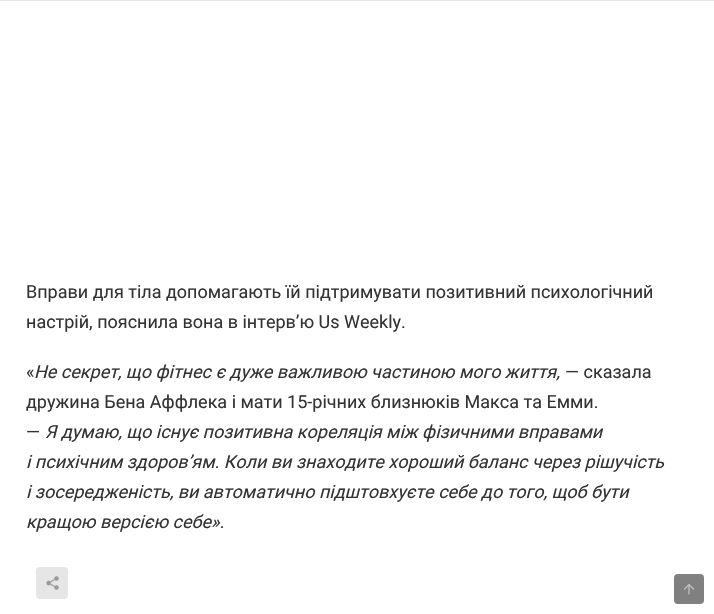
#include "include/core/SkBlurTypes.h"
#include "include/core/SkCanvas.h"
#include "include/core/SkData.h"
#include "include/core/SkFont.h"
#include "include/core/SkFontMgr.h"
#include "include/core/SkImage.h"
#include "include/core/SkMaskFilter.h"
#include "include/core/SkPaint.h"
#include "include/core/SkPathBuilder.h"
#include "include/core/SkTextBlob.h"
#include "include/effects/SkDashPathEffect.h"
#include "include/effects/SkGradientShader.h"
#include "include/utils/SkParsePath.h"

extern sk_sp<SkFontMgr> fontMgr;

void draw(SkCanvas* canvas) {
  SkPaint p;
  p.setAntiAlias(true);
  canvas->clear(SK_ColorWHITE);
  p.setColor(SkColorSetRGB(230, 230, 230));
  canvas->drawRect(SkRect::MakeLTRB(0, 0, 714, 1), p);
  canvas->drawRoundRect(SkRect::MakeLTRB(36, 567, 68, 599), 4, 4, p);
  canvas->drawImageRect(SkImages::DeferredFromEncodedData(SkData::MakeFromFileName("images/1.png")), SkRect::MakeLTRB(46, 576, 59, 590), SkSamplingOptions());
  p.setColor(SkColorSetRGB(128, 128, 128));
  canvas->drawRoundRect(SkRect::MakeLTRB(674, 574, 704, 604), 4, 4, p);
  canvas->drawImageRect(SkImages::DeferredFromEncodedData(SkData::MakeFromFileName("images/2.png")), SkRect::MakeLTRB(684, 584, 695, 595), SkSamplingOptions());
  SkFont font1(fontMgr->matchFamilyStyle("Roboto", SkFontStyle::Normal()), 18);
  font1.setSubpixel(true);
  p.setColor(SkColorSetRGB(51, 51, 51));
  canvas->drawString("Вправи для тіла допомагають їй підтримувати позитивний психологічний", 26, 298, font1, p);
  canvas->drawString("настрій, пояснила вона в інтерв’ю Us Weekly.", 26, 328, font1, p);
  canvas->drawString("«", 26, 378, font1, p);
  SkFont font2(fontMgr->matchFamilyStyle("Roboto", SkFontStyle::Italic()), 18);
  font2.setSubpixel(true);
  canvas->drawString("Не секрет, що фітнес є дуже важливою частиною мого життя,", 34, 378, font2, p);
  canvas->drawString("— сказала", 565, 378, font1, p);
  canvas->drawString("дружина Бена Аффлека і мати 15-річних близнюків Макса та Емми.", 26, 408, font1, p);
  canvas->drawString("—", 26, 438, font1, p);
  canvas->drawString("Я думаю, що існує позитивна кореляція між фізичними вправами", 45, 438, font2, p);
  canvas->drawString("і психічним здоров’ям. Коли ви знаходите хороший баланс через рішучість", 26, 468, font2, p);
  canvas->drawString("і зосередженість, ви автоматично підштовхуєте себе до того, щоб бути", 26, 498, font2, p);
  canvas->drawString("кращою версією себе».", 26, 528, font2, p);
}
